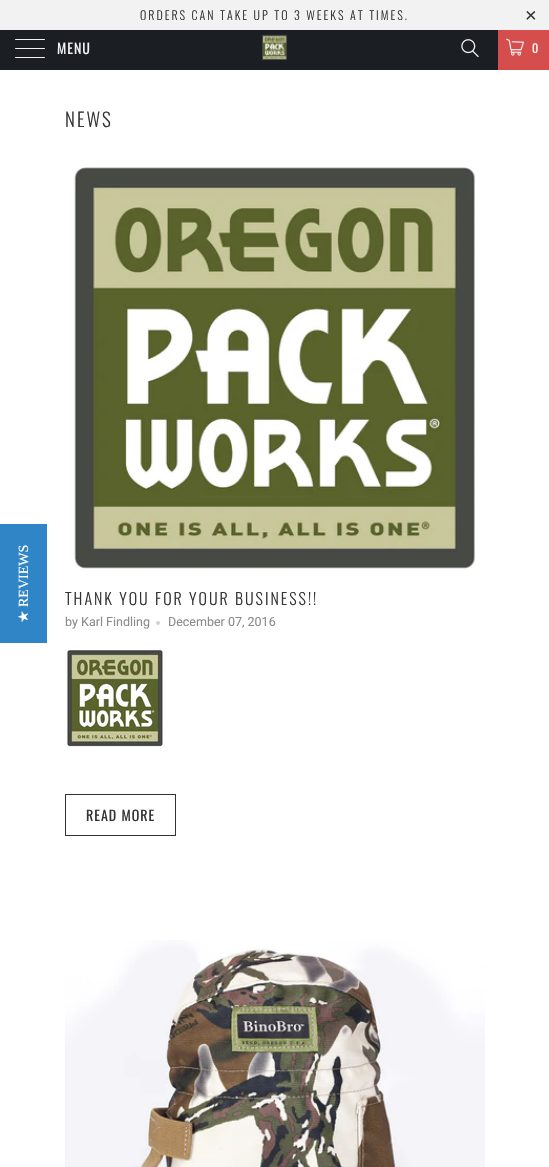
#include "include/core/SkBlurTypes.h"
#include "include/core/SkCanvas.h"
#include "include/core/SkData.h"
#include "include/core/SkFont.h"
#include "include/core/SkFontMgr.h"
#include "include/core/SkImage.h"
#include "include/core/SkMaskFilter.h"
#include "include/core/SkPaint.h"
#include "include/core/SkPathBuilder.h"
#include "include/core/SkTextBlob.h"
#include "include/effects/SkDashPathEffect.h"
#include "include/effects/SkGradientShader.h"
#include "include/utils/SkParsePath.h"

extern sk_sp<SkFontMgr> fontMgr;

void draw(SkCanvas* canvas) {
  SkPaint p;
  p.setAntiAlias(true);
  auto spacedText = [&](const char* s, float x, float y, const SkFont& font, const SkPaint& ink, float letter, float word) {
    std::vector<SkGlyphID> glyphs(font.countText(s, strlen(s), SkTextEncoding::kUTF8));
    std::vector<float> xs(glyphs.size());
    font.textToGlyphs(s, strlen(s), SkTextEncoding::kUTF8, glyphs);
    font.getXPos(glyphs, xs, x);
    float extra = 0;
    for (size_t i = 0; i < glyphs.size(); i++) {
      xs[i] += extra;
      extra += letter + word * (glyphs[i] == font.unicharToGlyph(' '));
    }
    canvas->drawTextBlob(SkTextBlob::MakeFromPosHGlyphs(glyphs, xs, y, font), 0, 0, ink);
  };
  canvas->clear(SK_ColorWHITE);
  p.setColor(SkColorSetRGB(242, 242, 242));
  canvas->drawRect(SkRect::MakeLTRB(0, 0, 549, 30), p);
  p.setColor(SkColorSetRGB(27, 31, 35));
  canvas->drawRect(SkRect::MakeLTRB(0, 30, 498, 70), p);
  p.setColor(SkColorSetRGB(244, 244, 244));
  canvas->drawRoundRect(SkRect::MakeLTRB(15, 39, 45, 40), 0.5f, 0.5f, p);
  canvas->drawRoundRect(SkRect::MakeLTRB(15, 48, 45, 49), 0.5f, 0.5f, p);
  canvas->drawRoundRect(SkRect::MakeLTRB(15, 57, 45, 58), 0.5f, 0.5f, p);
  canvas->drawImageRect(SkImages::DeferredFromEncodedData(SkData::MakeFromFileName("images/1.png")), SkRect::MakeLTRB(262, 34, 287, 60), SkSamplingOptions());
  canvas->drawImageRect(SkImages::DeferredFromEncodedData(SkData::MakeFromFileName("images/2.png")), SkRect::MakeLTRB(461, 39, 479, 58), SkSamplingOptions());
  p.setColor(SkColorSetRGB(213, 77, 77));
  canvas->drawRect(SkRect::MakeLTRB(498, 30, 549, 70), p);
  canvas->drawImageRect(SkImages::DeferredFromEncodedData(SkData::MakeFromFileName("images/3.png")), SkRect::MakeLTRB(506, 38, 524, 56), SkSamplingOptions());
  p.setColor(SkColorSetRGB(48, 133, 199));
  canvas->drawRect(SkRect::MakeLTRB(0, 524, 47, 643), p);
  canvas->drawImageRect(SkImages::DeferredFromEncodedData(SkData::MakeFromFileName("images/4.png")), SkRect::MakeLTRB(74, 167, 476, 570), SkSamplingOptions());
  p.setColor(SkColorSetRGB(206, 211, 211));
  canvas->drawCircle(158, 623, 2, p);
  canvas->drawImageRect(SkImages::DeferredFromEncodedData(SkData::MakeFromFileName("images/5.png")), SkRect::MakeLTRB(65, 650, 165, 748), SkSamplingOptions());
  p.setStyle(SkPaint::kStroke_Style);
  p.setStrokeWidth(1);
  p.setColor(SkColorSetRGB(51, 51, 51));
  canvas->drawRect(SkRect::MakeLTRB(65.5f, 794.5f, 175.5f, 835.5f), p);
  canvas->drawImageRect(SkImages::DeferredFromEncodedData(SkData::MakeFromFileName("images/6.png")), SkRect::MakeLTRB(65, 940, 485, 1167), SkSamplingOptions());
  SkFont font1(fontMgr->matchFamilyStyle("Oswald", SkFontStyle(300, SkFontStyle::kNormal_Width, SkFontStyle::kUpright_Slant)), 12);
  font1.setSubpixel(true);
  p.setStyle(SkPaint::kFill_Style);
  spacedText("ORDERS CAN TAKE UP TO 3 WEEKS AT TIMES.", 140, 20, font1, p, 2, 0);
  SkFont font2(fontMgr->matchFamilyStyle("Liberation Sans", SkFontStyle::Normal()), 20);
  font2.setSubpixel(true);
  spacedText("×", 525, 22, font2, p, 2, 0);
  SkFont font3(fontMgr->matchFamilyStyle("Oswald", SkFontStyle::Normal()), 14);
  font3.setSubpixel(true);
  p.setColor(SkColorSetRGB(244, 244, 244));
  spacedText("MENU", 57, 54, font3, p, 1, 0);
  SkFont font4(fontMgr->matchFamilyStyle("Oswald", SkFontStyle::Normal()), 12);
  font4.setSubpixel(true);
  spacedText("0", 532, 53, font4, p, 1, 0);
  SkFont font5(fontMgr->matchFamilyStyle("Liberation Serif", SkFontStyle::Normal()), 14);
  font5.setSubpixel(true);
  p.setColor(SK_ColorWHITE);
  canvas->save();
  canvas->rotate(-90, 28, 607);
  canvas->drawString("REVIEWS", 28, 607, font5, p);
  canvas->restore();
  SkFont font6(fontMgr->matchFamilyStyle("DejaVu Sans", SkFontStyle::Normal()), 14);
  font6.setSubpixel(true);
  canvas->save();
  canvas->rotate(-90, 28, 623);
  canvas->drawString("★", 28, 623, font6, p);
  canvas->restore();
  SkFont font7(fontMgr->matchFamilyStyle("Oswald", SkFontStyle(300, SkFontStyle::kNormal_Width, SkFontStyle::kUpright_Slant)), 19);
  font7.setSubpixel(true);
  p.setColor(SkColorSetRGB(51, 51, 51));
  spacedText("NEWS", 65, 127, font7, p, 2, 0);
  SkFont font8(fontMgr->matchFamilyStyle("Oswald", SkFontStyle(300, SkFontStyle::kNormal_Width, SkFontStyle::kUpright_Slant)), 16);
  font8.setSubpixel(true);
  spacedText("THANK YOU FOR YOUR BUSINESS!!", 65, 605, font8, p, 2, 0);
  SkFont font9(fontMgr->matchFamilyStyle("Roboto", SkFontStyle::Normal()), 12.5f);
  font9.setSubpixel(true);
  p.setColor(SkColorSetRGB(140, 139, 139));
  canvas->drawString("by Karl Findling", 65, 626, font9, p);
  canvas->drawString("December 07, 2016", 168, 626, font9, p);
  p.setColor(SkColorSetRGB(51, 51, 51));
  spacedText("READ MORE", 86, 821, font3, p, 1, 0);
}
